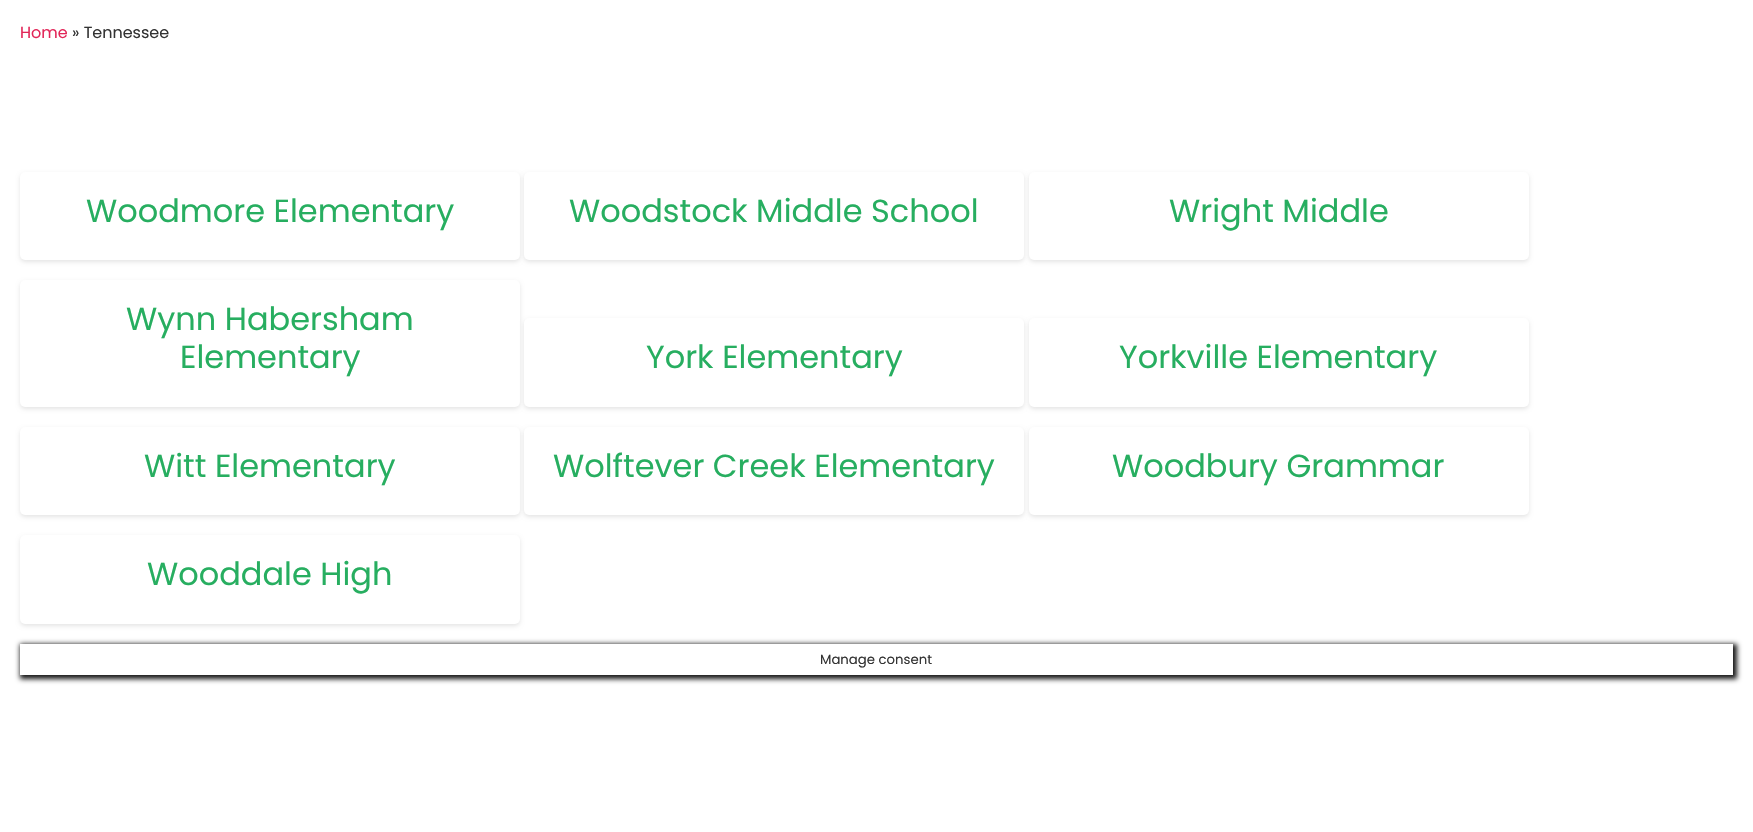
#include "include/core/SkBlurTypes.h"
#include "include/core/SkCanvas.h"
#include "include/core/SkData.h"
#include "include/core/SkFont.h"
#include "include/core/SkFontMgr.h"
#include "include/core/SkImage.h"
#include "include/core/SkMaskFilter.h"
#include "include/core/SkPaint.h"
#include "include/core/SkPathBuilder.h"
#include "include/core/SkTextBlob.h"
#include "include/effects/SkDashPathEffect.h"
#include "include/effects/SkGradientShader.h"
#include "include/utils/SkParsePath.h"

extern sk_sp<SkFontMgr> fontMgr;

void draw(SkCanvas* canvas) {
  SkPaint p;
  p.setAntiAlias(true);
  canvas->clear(SK_ColorWHITE);
  p.setColor(SkColorSetARGB(26, 0, 0, 0));
  p.setMaskFilter(SkMaskFilter::MakeBlur(kNormal_SkBlurStyle, 2));
  canvas->drawRoundRect(SkRect::MakeLTRB(20, 174, 520, 262), 5, 5, p);
  p.setMaskFilter(nullptr);
  p.setColor(SK_ColorWHITE);
  canvas->drawRoundRect(SkRect::MakeLTRB(20, 172, 520, 260), 5, 5, p);
  p.setColor(SkColorSetARGB(26, 0, 0, 0));
  p.setMaskFilter(SkMaskFilter::MakeBlur(kNormal_SkBlurStyle, 2));
  canvas->drawRoundRect(SkRect::MakeLTRB(524, 174, 1024, 262), 5, 5, p);
  p.setMaskFilter(nullptr);
  p.setColor(SK_ColorWHITE);
  canvas->drawRoundRect(SkRect::MakeLTRB(524, 172, 1024, 260), 5, 5, p);
  p.setColor(SkColorSetARGB(26, 0, 0, 0));
  p.setMaskFilter(SkMaskFilter::MakeBlur(kNormal_SkBlurStyle, 2));
  canvas->drawRoundRect(SkRect::MakeLTRB(1029, 174, 1529, 262), 5, 5, p);
  p.setMaskFilter(nullptr);
  p.setColor(SK_ColorWHITE);
  canvas->drawRoundRect(SkRect::MakeLTRB(1029, 172, 1529, 260), 5, 5, p);
  p.setColor(SkColorSetARGB(26, 0, 0, 0));
  p.setMaskFilter(SkMaskFilter::MakeBlur(kNormal_SkBlurStyle, 2));
  canvas->drawRoundRect(SkRect::MakeLTRB(20, 282, 520, 409), 5, 5, p);
  p.setMaskFilter(nullptr);
  p.setColor(SK_ColorWHITE);
  canvas->drawRoundRect(SkRect::MakeLTRB(20, 280, 520, 407), 5, 5, p);
  p.setColor(SkColorSetARGB(26, 0, 0, 0));
  p.setMaskFilter(SkMaskFilter::MakeBlur(kNormal_SkBlurStyle, 2));
  canvas->drawRoundRect(SkRect::MakeLTRB(524, 320, 1024, 409), 5, 5, p);
  p.setMaskFilter(nullptr);
  p.setColor(SK_ColorWHITE);
  canvas->drawRoundRect(SkRect::MakeLTRB(524, 318, 1024, 407), 5, 5, p);
  p.setColor(SkColorSetARGB(26, 0, 0, 0));
  p.setMaskFilter(SkMaskFilter::MakeBlur(kNormal_SkBlurStyle, 2));
  canvas->drawRoundRect(SkRect::MakeLTRB(1029, 320, 1529, 409), 5, 5, p);
  p.setMaskFilter(nullptr);
  p.setColor(SK_ColorWHITE);
  canvas->drawRoundRect(SkRect::MakeLTRB(1029, 318, 1529, 407), 5, 5, p);
  p.setColor(SkColorSetARGB(26, 0, 0, 0));
  p.setMaskFilter(SkMaskFilter::MakeBlur(kNormal_SkBlurStyle, 2));
  canvas->drawRoundRect(SkRect::MakeLTRB(20, 429, 520, 517), 5, 5, p);
  p.setMaskFilter(nullptr);
  p.setColor(SK_ColorWHITE);
  canvas->drawRoundRect(SkRect::MakeLTRB(20, 427, 520, 515), 5, 5, p);
  p.setColor(SkColorSetARGB(26, 0, 0, 0));
  p.setMaskFilter(SkMaskFilter::MakeBlur(kNormal_SkBlurStyle, 2));
  canvas->drawRoundRect(SkRect::MakeLTRB(524, 429, 1024, 517), 5, 5, p);
  p.setMaskFilter(nullptr);
  p.setColor(SK_ColorWHITE);
  canvas->drawRoundRect(SkRect::MakeLTRB(524, 427, 1024, 515), 5, 5, p);
  p.setColor(SkColorSetARGB(26, 0, 0, 0));
  p.setMaskFilter(SkMaskFilter::MakeBlur(kNormal_SkBlurStyle, 2));
  canvas->drawRoundRect(SkRect::MakeLTRB(1029, 429, 1529, 517), 5, 5, p);
  p.setMaskFilter(nullptr);
  p.setColor(SK_ColorWHITE);
  canvas->drawRoundRect(SkRect::MakeLTRB(1029, 427, 1529, 515), 5, 5, p);
  p.setColor(SkColorSetARGB(26, 0, 0, 0));
  p.setMaskFilter(SkMaskFilter::MakeBlur(kNormal_SkBlurStyle, 2));
  canvas->drawRoundRect(SkRect::MakeLTRB(20, 537, 520, 626), 5, 5, p);
  p.setMaskFilter(nullptr);
  p.setColor(SK_ColorWHITE);
  canvas->drawRoundRect(SkRect::MakeLTRB(20, 535, 520, 624), 5, 5, p);
  canvas->save();
  canvas->clipPath(SkPathBuilder(SkPathFillType::kEvenOdd).moveTo(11, 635).lineTo(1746, 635).lineTo(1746, 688).lineTo(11, 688).close().moveTo(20, 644).lineTo(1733, 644).lineTo(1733, 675).lineTo(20, 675).close().detach(), true);
  p.setColor(SkColorSetRGB(22, 22, 22));
  p.setMaskFilter(SkMaskFilter::MakeBlur(kNormal_SkBlurStyle, 2.5f));
  canvas->drawRect(SkRect::MakeLTRB(20, 644, 1737, 679), p);
  p.setMaskFilter(nullptr);
  canvas->restore();
  SkFont font1(fontMgr->matchFamilyStyle("Poppins", SkFontStyle::Normal()), 16);
  font1.setSubpixel(true);
  p.setColor(SkColorSetRGB(226, 38, 88));
  canvas->drawString("Home", 20, 38, font1, p);
  p.setColor(SkColorSetRGB(51, 51, 51));
  canvas->drawString("» Tennessee", 72, 38, font1, p);
  SkFont font2(fontMgr->matchFamilyStyle("Poppins", SkFontStyle::Normal()), 32);
  font2.setSubpixel(true);
  p.setColor(SkColorSetRGB(39, 174, 96));
  canvas->drawString("Woodmore Elementary", 86, 222, font2, p);
  canvas->drawString("Woodstock Middle School", 569, 222, font2, p);
  canvas->drawString("Wright Middle", 1169, 222, font2, p);
  canvas->drawString("Wynn Habersham", 126, 330, font2, p);
  canvas->drawString("Elementary", 180, 368, font2, p);
  canvas->drawString("York Elementary", 646, 368, font2, p);
  canvas->drawString("Yorkville Elementary", 1119, 368, font2, p);
  canvas->drawString("Witt Elementary", 144, 477, font2, p);
  canvas->drawString("Wolftever Creek Elementary", 553, 477, font2, p);
  canvas->drawString("Woodbury Grammar", 1112, 477, font2, p);
  canvas->drawString("Wooddale High", 147, 585, font2, p);
  SkFont font3(fontMgr->matchFamilyStyle("Poppins", SkFontStyle::Normal()), 13.25f);
  font3.setSubpixel(true);
  p.setColor(SkColorSetRGB(51, 51, 51));
  canvas->drawString("Manage consent", 820, 664, font3, p);
}
